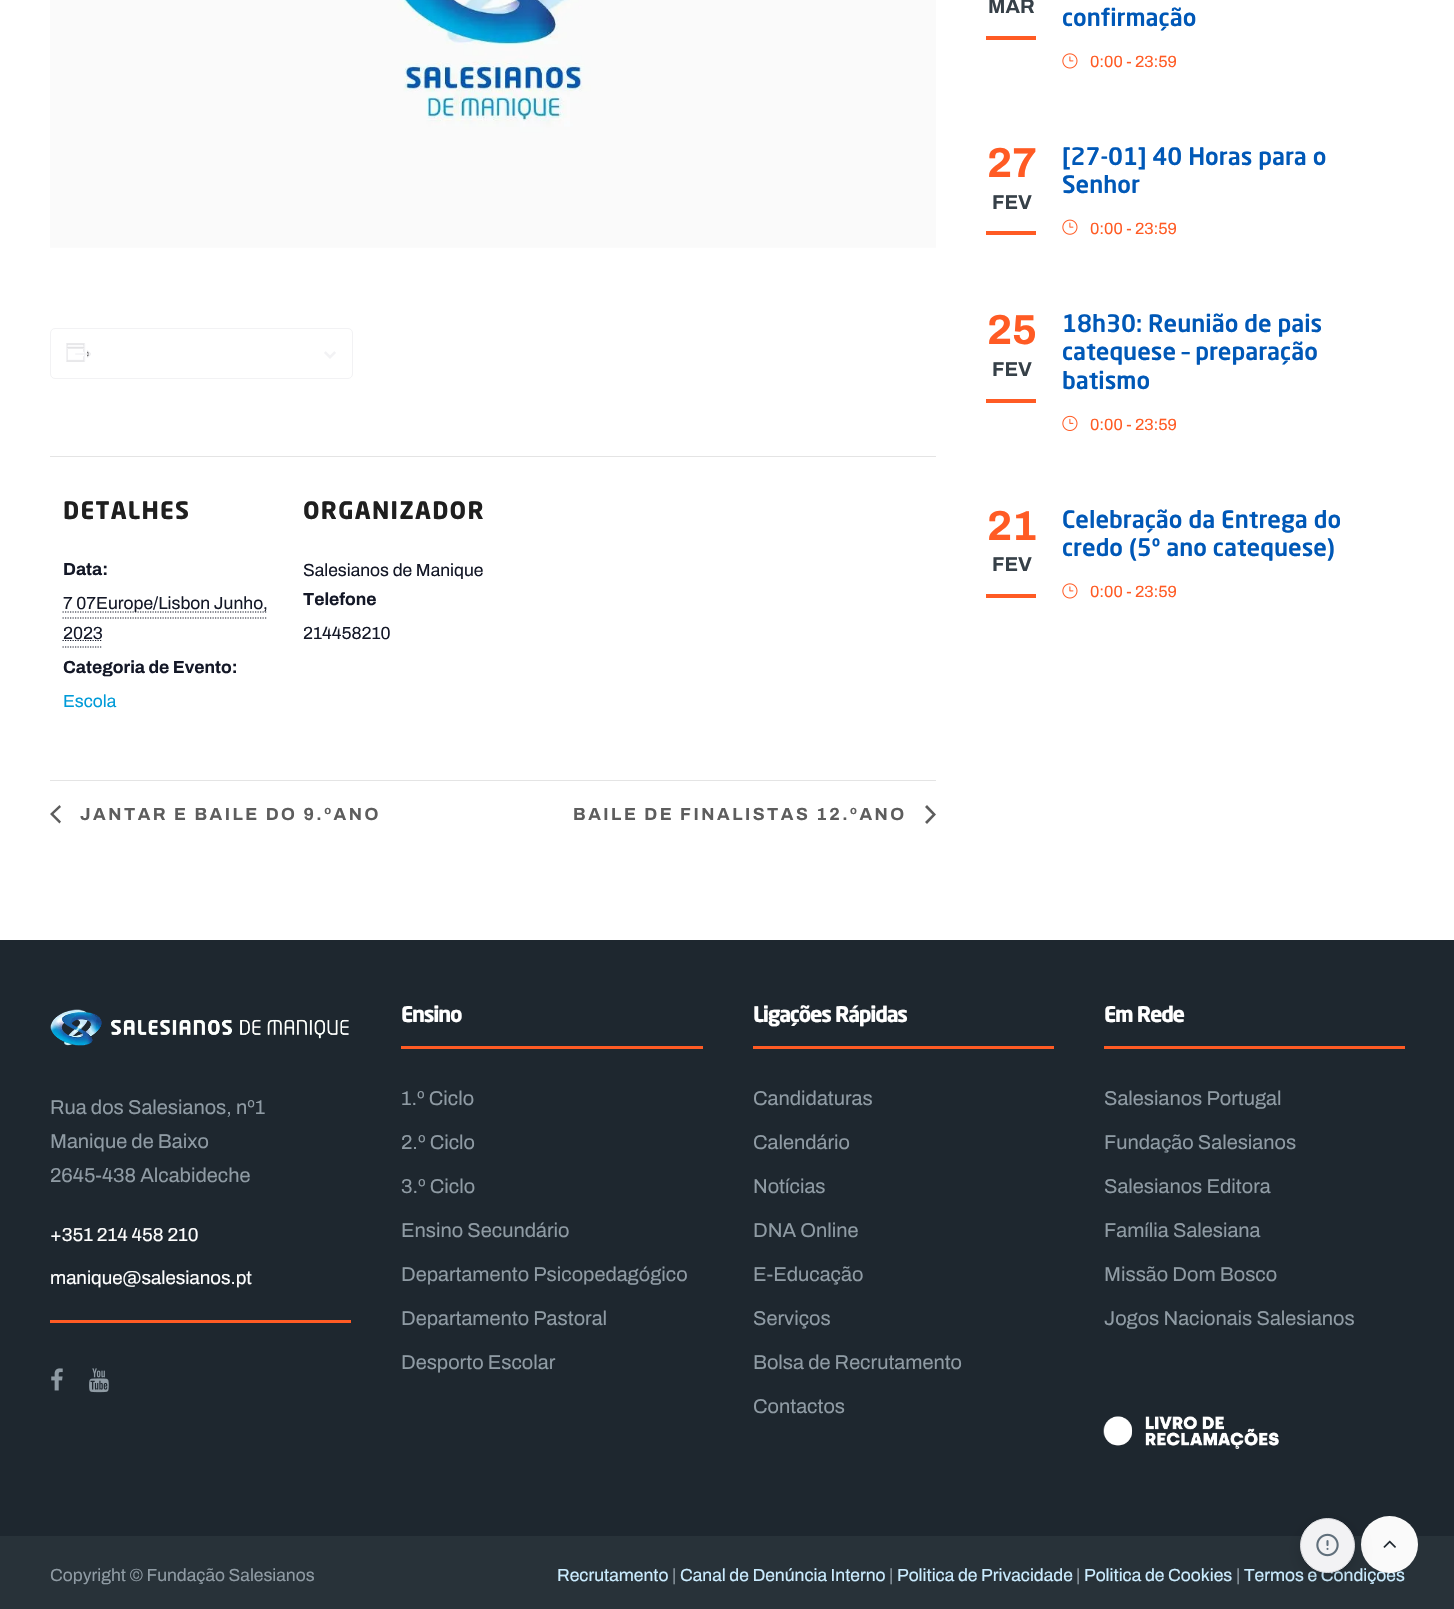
#include "include/core/SkBlurTypes.h"
#include "include/core/SkCanvas.h"
#include "include/core/SkData.h"
#include "include/core/SkFont.h"
#include "include/core/SkFontMgr.h"
#include "include/core/SkImage.h"
#include "include/core/SkMaskFilter.h"
#include "include/core/SkPaint.h"
#include "include/core/SkPathBuilder.h"
#include "include/core/SkTextBlob.h"
#include "include/effects/SkDashPathEffect.h"
#include "include/effects/SkGradientShader.h"
#include "include/utils/SkParsePath.h"

extern sk_sp<SkFontMgr> fontMgr;

void draw(SkCanvas* canvas) {
  SkPaint p;
  p.setAntiAlias(true);
  auto spacedText = [&](const char* s, float x, float y, const SkFont& font, const SkPaint& ink, float letter, float word) {
    std::vector<SkGlyphID> glyphs(font.countText(s, strlen(s), SkTextEncoding::kUTF8));
    std::vector<float> xs(glyphs.size());
    font.textToGlyphs(s, strlen(s), SkTextEncoding::kUTF8, glyphs);
    font.getXPos(glyphs, xs, x);
    float extra = 0;
    for (size_t i = 0; i < glyphs.size(); i++) {
      xs[i] += extra;
      extra += letter + word * (glyphs[i] == font.unicharToGlyph(' '));
    }
    canvas->drawTextBlob(SkTextBlob::MakeFromPosHGlyphs(glyphs, xs, y, font), 0, 0, ink);
  };
  canvas->clear(SK_ColorWHITE);
  p.setColor(SkColorSetRGB(255, 91, 36));
  canvas->drawRect(SkRect::MakeLTRB(986, 36, 1036, 40), p);
  canvas->drawImageRect(SkImages::DeferredFromEncodedData(SkData::MakeFromFileName("images/1.png")), SkRect::MakeLTRB(1062, 53, 1078, 69), SkSamplingOptions());
  canvas->drawRect(SkRect::MakeLTRB(986, 231, 1036, 235), p);
  canvas->drawImageRect(SkImages::DeferredFromEncodedData(SkData::MakeFromFileName("images/2.png")), SkRect::MakeLTRB(1062, 219, 1078, 235), SkSamplingOptions());
  canvas->drawRect(SkRect::MakeLTRB(986, 399, 1036, 403), p);
  canvas->drawImageRect(SkImages::DeferredFromEncodedData(SkData::MakeFromFileName("images/3.png")), SkRect::MakeLTRB(1062, 415, 1078, 431), SkSamplingOptions());
  canvas->drawRect(SkRect::MakeLTRB(986, 594, 1036, 598), p);
  canvas->drawImageRect(SkImages::DeferredFromEncodedData(SkData::MakeFromFileName("images/1.png")), SkRect::MakeLTRB(1062, 583, 1078, 599), SkSamplingOptions());
  canvas->drawImageRect(SkImages::DeferredFromEncodedData(SkData::MakeFromFileName("images/4.png")), SkRect::MakeLTRB(50, 0, 936, 248), SkSamplingOptions());
  p.setStyle(SkPaint::kStroke_Style);
  p.setStrokeWidth(1);
  p.setColor(SkColorSetRGB(242, 242, 244));
  canvas->drawRoundRect(SkRect::MakeLTRB(50.5f, 328.5f, 352.5f, 378.5f), 4.5f, 4.5f, p);
  canvas->drawImageRect(SkImages::DeferredFromEncodedData(SkData::MakeFromFileName("images/5.png")), SkRect::MakeLTRB(66, 343, 91, 362), SkSamplingOptions());
  canvas->drawImageRect(SkImages::DeferredFromEncodedData(SkData::MakeFromFileName("images/6.png")), SkRect::MakeLTRB(324, 351, 336, 359), SkSamplingOptions());
  p.setStyle(SkPaint::kFill_Style);
  p.setColor(SkColorSetRGB(228, 228, 228));
  canvas->drawRect(SkRect::MakeLTRB(50, 456, 936, 457), p);
  p.setStyle(SkPaint::kStroke_Style);
  p.setStrokeWidth(1.2f);
  p.setColor(SkColorSetRGB(20, 24, 39));
  p.setPathEffect(SkDashPathEffect::Make({{1.25f, 1.25f}}, 0));
  canvas->drawPath(SkPathBuilder().moveTo(62.5f, 618).lineTo(267.5f, 618).detach(), p);
  p.setPathEffect(nullptr);
  p.setPathEffect(SkDashPathEffect::Make({{1.25f, 1.25f}}, 0));
  canvas->drawPath(SkPathBuilder().moveTo(62.5f, 612).lineTo(267.5f, 612).detach(), p);
  p.setPathEffect(nullptr);
  p.setPathEffect(SkDashPathEffect::Make({{1.25f, 1.25f}}, 0));
  canvas->drawPath(SkPathBuilder().moveTo(62.5f, 647).lineTo(102.5f, 647).detach(), p);
  p.setPathEffect(nullptr);
  p.setPathEffect(SkDashPathEffect::Make({{1.25f, 1.25f}}, 0));
  canvas->drawPath(SkPathBuilder().moveTo(62.5f, 640.5f).lineTo(102.5f, 640.5f).detach(), p);
  p.setPathEffect(nullptr);
  p.setStyle(SkPaint::kFill_Style);
  p.setColor(SkColorSetRGB(228, 228, 228));
  canvas->drawRect(SkRect::MakeLTRB(50, 780, 936, 781), p);
  p.setColor(SkColorSetRGB(93, 93, 93));
  canvas->drawPath(SkPathBuilder().moveTo(61, 821.5f).lineTo(59.5f, 823.5f).lineTo(50, 814).lineTo(59.5f, 805).lineTo(61, 807).lineTo(53.5f, 814).close().detach(), p);
  canvas->drawPath(SkPathBuilder().moveTo(925, 807).lineTo(927, 805).lineTo(936, 814.5f).lineTo(927, 824).lineTo(925, 822).lineTo(932.5f, 814.5f).close().detach(), p);
  p.setColor(SkColorSetRGB(30, 39, 47));
  canvas->drawRect(SkRect::MakeLTRB(0, 940, 1454, 1536), p);
  canvas->drawImageRect(SkImages::DeferredFromEncodedData(SkData::MakeFromFileName("images/7.png")), SkRect::MakeLTRB(50, 1009, 349, 1046), SkSamplingOptions());
  p.setColor(SkColorSetRGB(255, 91, 36));
  canvas->drawRect(SkRect::MakeLTRB(50, 1320, 351, 1323), p);
  canvas->drawImageRect(SkImages::DeferredFromEncodedData(SkData::MakeFromFileName("images/8.png")), SkRect::MakeLTRB(51, 1368, 63, 1391), SkSamplingOptions());
  canvas->drawImageRect(SkImages::DeferredFromEncodedData(SkData::MakeFromFileName("images/9.png")), SkRect::MakeLTRB(89, 1368, 109, 1393), SkSamplingOptions());
  canvas->drawRect(SkRect::MakeLTRB(401, 1046, 703, 1049), p);
  canvas->drawRect(SkRect::MakeLTRB(753, 1046, 1054, 1049), p);
  canvas->drawRect(SkRect::MakeLTRB(1104, 1046, 1405, 1049), p);
  canvas->drawImageRect(SkImages::DeferredFromEncodedData(SkData::MakeFromFileName("images/10.png")), SkRect::MakeLTRB(1103, 1416, 1279, 1449), SkSamplingOptions());
  p.setColor(SkColorSetRGB(40, 50, 57));
  canvas->drawRect(SkRect::MakeLTRB(0, 1536, 1454, 1609), p);
  SkFont font1(fontMgr->matchFamilyStyle("Archivo", SkFontStyle::Bold()), 20);
  font1.setSubpixel(true);
  p.setColor(SkColorSetRGB(54, 64, 72));
  canvas->drawString("MAR", 988, 13, font1, p);
  SkFont font2(fontMgr->matchFamilyStyle("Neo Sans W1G", SkFontStyle(500, SkFontStyle::kNormal_Width, SkFontStyle::kUpright_Slant)), 23.75f);
  font2.setSubpixel(true);
  p.setColor(SkColorSetRGB(0, 88, 183));
  canvas->drawString("confirmação", 1062, 26, font2, p);
  SkFont font3(fontMgr->matchFamilyStyle("Archivo", SkFontStyle::Normal()), 16.25f);
  font3.setSubpixel(true);
  p.setColor(SkColorSetRGB(255, 91, 36));
  canvas->drawString("0:00 - 23:59", 1090, 67, font3, p);
  SkFont font4(fontMgr->matchFamilyStyle("Archivo", SkFontStyle::Bold()), 42);
  font4.setSubpixel(true);
  canvas->drawString("27", 987, 177, font4, p);
  p.setColor(SkColorSetRGB(54, 64, 72));
  canvas->drawString("FEV", 992, 209, font1, p);
  p.setColor(SkColorSetRGB(0, 88, 183));
  canvas->drawString("[27-01] 40 Horas para o", 1062, 165, font2, p);
  canvas->drawString("Senhor", 1062, 193, font2, p);
  p.setColor(SkColorSetRGB(255, 91, 36));
  canvas->drawString("0:00 - 23:59", 1090, 234, font3, p);
  canvas->drawString("25", 987, 344, font4, p);
  p.setColor(SkColorSetRGB(54, 64, 72));
  canvas->drawString("FEV", 992, 376, font1, p);
  p.setColor(SkColorSetRGB(0, 88, 183));
  canvas->drawString("18h30: Reunião de pais", 1062, 332, font2, p);
  canvas->drawString("catequese – preparação", 1062, 360, font2, p);
  canvas->drawString("batismo", 1062, 389, font2, p);
  p.setColor(SkColorSetRGB(255, 91, 36));
  canvas->drawString("0:00 - 23:59", 1090, 430, font3, p);
  canvas->drawString("21", 987, 540, font4, p);
  p.setColor(SkColorSetRGB(54, 64, 72));
  canvas->drawString("FEV", 992, 571, font1, p);
  p.setColor(SkColorSetRGB(0, 88, 183));
  canvas->drawString("Celebração da Entrega do", 1062, 528, font2, p);
  canvas->drawString("credo (5º ano catequese)", 1062, 556, font2, p);
  p.setColor(SkColorSetRGB(255, 91, 36));
  canvas->drawString("0:00 - 23:59", 1090, 597, font3, p);
  SkFont font5(fontMgr->matchFamilyStyle("Neo Sans W1G", SkFontStyle::Bold()), 23.75f);
  font5.setSubpixel(true);
  p.setColor(SkColorSetRGB(31, 31, 31));
  spacedText("DETALHES", 63, 519, font5, p, 1.25f, 0);
  SkFont font6(fontMgr->matchFamilyStyle("Archivo", SkFontStyle::Bold()), 17.5f);
  font6.setSubpixel(true);
  p.setColor(SkColorSetRGB(20, 24, 39));
  canvas->drawString("Data:", 63, 575, font6, p);
  SkFont font7(fontMgr->matchFamilyStyle("Archivo", SkFontStyle::Normal()), 17.5f);
  font7.setSubpixel(true);
  canvas->drawString("7 07Europe/Lisbon Junho,", 63, 609, font7, p);
  canvas->drawString("2023", 63, 639, font7, p);
  canvas->drawString("Categoria de Evento:", 63, 673, font6, p);
  p.setColor(SkColorSetRGB(0, 155, 216));
  canvas->drawString("Escola", 63, 707, font7, p);
  p.setColor(SkColorSetRGB(31, 31, 31));
  spacedText("ORGANIZADOR", 303, 519, font5, p, 1.25f, 0);
  p.setColor(SkColorSetRGB(20, 24, 39));
  canvas->drawString("Salesianos de Manique", 303, 576, font7, p);
  canvas->drawString("Telefone", 303, 605, font6, p);
  canvas->drawString("214458210", 303, 639, font7, p);
  p.setColor(SkColorSetRGB(93, 93, 93));
  spacedText("JANTAR E BAILE DO 9.ºANO", 80, 820, font6, p, 2.5f, 0);
  spacedText("BAILE DE FINALISTAS 12.ºANO", 573, 820, font6, p, 2.5f, 0);
  SkFont font8(fontMgr->matchFamilyStyle("Archivo", SkFontStyle::Normal()), 20);
  font8.setSubpixel(true);
  p.setColor(SkColorSetRGB(143, 155, 164));
  canvas->drawString("Rua dos Salesianos, nº1", 50, 1114, font8, p);
  canvas->drawString("Manique de Baixo", 50, 1148, font8, p);
  canvas->drawString("2645-438 Alcabideche", 50, 1182, font8, p);
  SkFont font9(fontMgr->matchFamilyStyle("Archivo", SkFontStyle::Normal()), 18.75f);
  font9.setSubpixel(true);
  p.setColor(SK_ColorWHITE);
  canvas->drawString("+351 214 458 210", 50, 1241, font9, p);
  canvas->drawString("manique@salesianos.pt", 50, 1284, font9, p);
  SkFont font10(fontMgr->matchFamilyStyle("Neo Sans W1G", SkFontStyle::Bold()), 21.25f);
  font10.setSubpixel(true);
  spacedText("Ensino", 401, 1022, font10, p, -1.25f, 0);
  p.setColor(SkColorSetRGB(143, 155, 164));
  canvas->drawString("1.º Ciclo", 401, 1105, font8, p);
  canvas->drawString("2.º Ciclo", 401, 1149, font8, p);
  canvas->drawString("3.º Ciclo", 401, 1193, font8, p);
  canvas->drawString("Ensino Secundário", 401, 1237, font8, p);
  canvas->drawString("Departamento Psicopedagógico", 401, 1281, font8, p);
  canvas->drawString("Departamento Pastoral", 401, 1325, font8, p);
  canvas->drawString("Desporto Escolar", 401, 1369, font8, p);
  p.setColor(SK_ColorWHITE);
  spacedText("Ligações Rápidas", 753, 1022, font10, p, -1.25f, 0);
  p.setColor(SkColorSetRGB(143, 155, 164));
  canvas->drawString("Candidaturas", 753, 1105, font8, p);
  canvas->drawString("Calendário", 753, 1149, font8, p);
  canvas->drawString("Notícias", 753, 1193, font8, p);
  canvas->drawString("DNA Online", 753, 1237, font8, p);
  canvas->drawString("E-Educação", 753, 1281, font8, p);
  canvas->drawString("Serviços", 753, 1325, font8, p);
  canvas->drawString("Bolsa de Recrutamento", 753, 1369, font8, p);
  canvas->drawString("Contactos", 753, 1413, font8, p);
  p.setColor(SK_ColorWHITE);
  spacedText("Em Rede", 1104, 1022, font10, p, -1.25f, 0);
  p.setColor(SkColorSetRGB(143, 155, 164));
  canvas->drawString("Salesianos Portugal", 1104, 1105, font8, p);
  canvas->drawString("Fundação Salesianos", 1104, 1149, font8, p);
  canvas->drawString("Salesianos Editora", 1104, 1193, font8, p);
  canvas->drawString("Família Salesiana", 1104, 1237, font8, p);
  canvas->drawString("Missão Dom Bosco", 1104, 1281, font8, p);
  canvas->drawString("Jogos Nacionais Salesianos", 1104, 1325, font8, p);
  canvas->drawString("Copyright © Fundação Salesianos", 50, 1581, font7, p);
  p.setColor(SkColorSetRGB(202, 236, 255));
  canvas->drawString("Recrutamento", 557, 1581, font7, p);
  p.setColor(SkColorSetRGB(143, 155, 164));
  canvas->drawString("|", 672, 1581, font7, p);
  p.setColor(SkColorSetRGB(202, 236, 255));
  canvas->drawString("Canal de Denúncia Interno", 680, 1581, font7, p);
  p.setColor(SkColorSetRGB(143, 155, 164));
  canvas->drawString("|", 889, 1581, font7, p);
  p.setColor(SkColorSetRGB(202, 236, 255));
  canvas->drawString("Politica de Privacidade", 897, 1581, font7, p);
  p.setColor(SkColorSetRGB(143, 155, 164));
  canvas->drawString("|", 1076, 1581, font7, p);
  p.setColor(SkColorSetRGB(202, 236, 255));
  canvas->drawString("Politica de Cookies", 1084, 1581, font7, p);
  p.setColor(SkColorSetRGB(143, 155, 164));
  canvas->drawString("|", 1236, 1581, font7, p);
  p.setColor(SkColorSetRGB(202, 236, 255));
  canvas->drawString("Termos e Condições", 1244, 1581, font7, p);
  p.setColor(SkColorSetRGB(250, 250, 250));
  canvas->drawCircle(1389.5f, 1544.5f, 28.5f, p);
  p.setColor(SkColorSetARGB(38, 0, 0, 0));
  p.setMaskFilter(SkMaskFilter::MakeBlur(kNormal_SkBlurStyle, 7.5f));
  canvas->drawRoundRect(SkRect::MakeLTRB(1300, 1523, 1355, 1578), 27.5f, 27.5f, p);
  p.setMaskFilter(nullptr);
  p.setColor(SkColorSetRGB(242, 242, 244));
  canvas->drawCircle(1327.5f, 1545.5f, 27, p);
  p.setStyle(SkPaint::kStroke_Style);
  p.setStrokeWidth(1);
  p.setColor(SkColorSetRGB(220, 220, 224));
  canvas->drawCircle(1327.5f, 1545.5f, 27, p);
  canvas->drawImageRect(SkImages::DeferredFromEncodedData(SkData::MakeFromFileName("images/11.png")), SkRect::MakeLTRB(1316, 1533, 1339, 1557), SkSamplingOptions());
  canvas->drawImageRect(SkImages::DeferredFromEncodedData(SkData::MakeFromFileName("images/12.png")), SkRect::MakeLTRB(1383, 1540, 1396, 1548), SkSamplingOptions());
}
